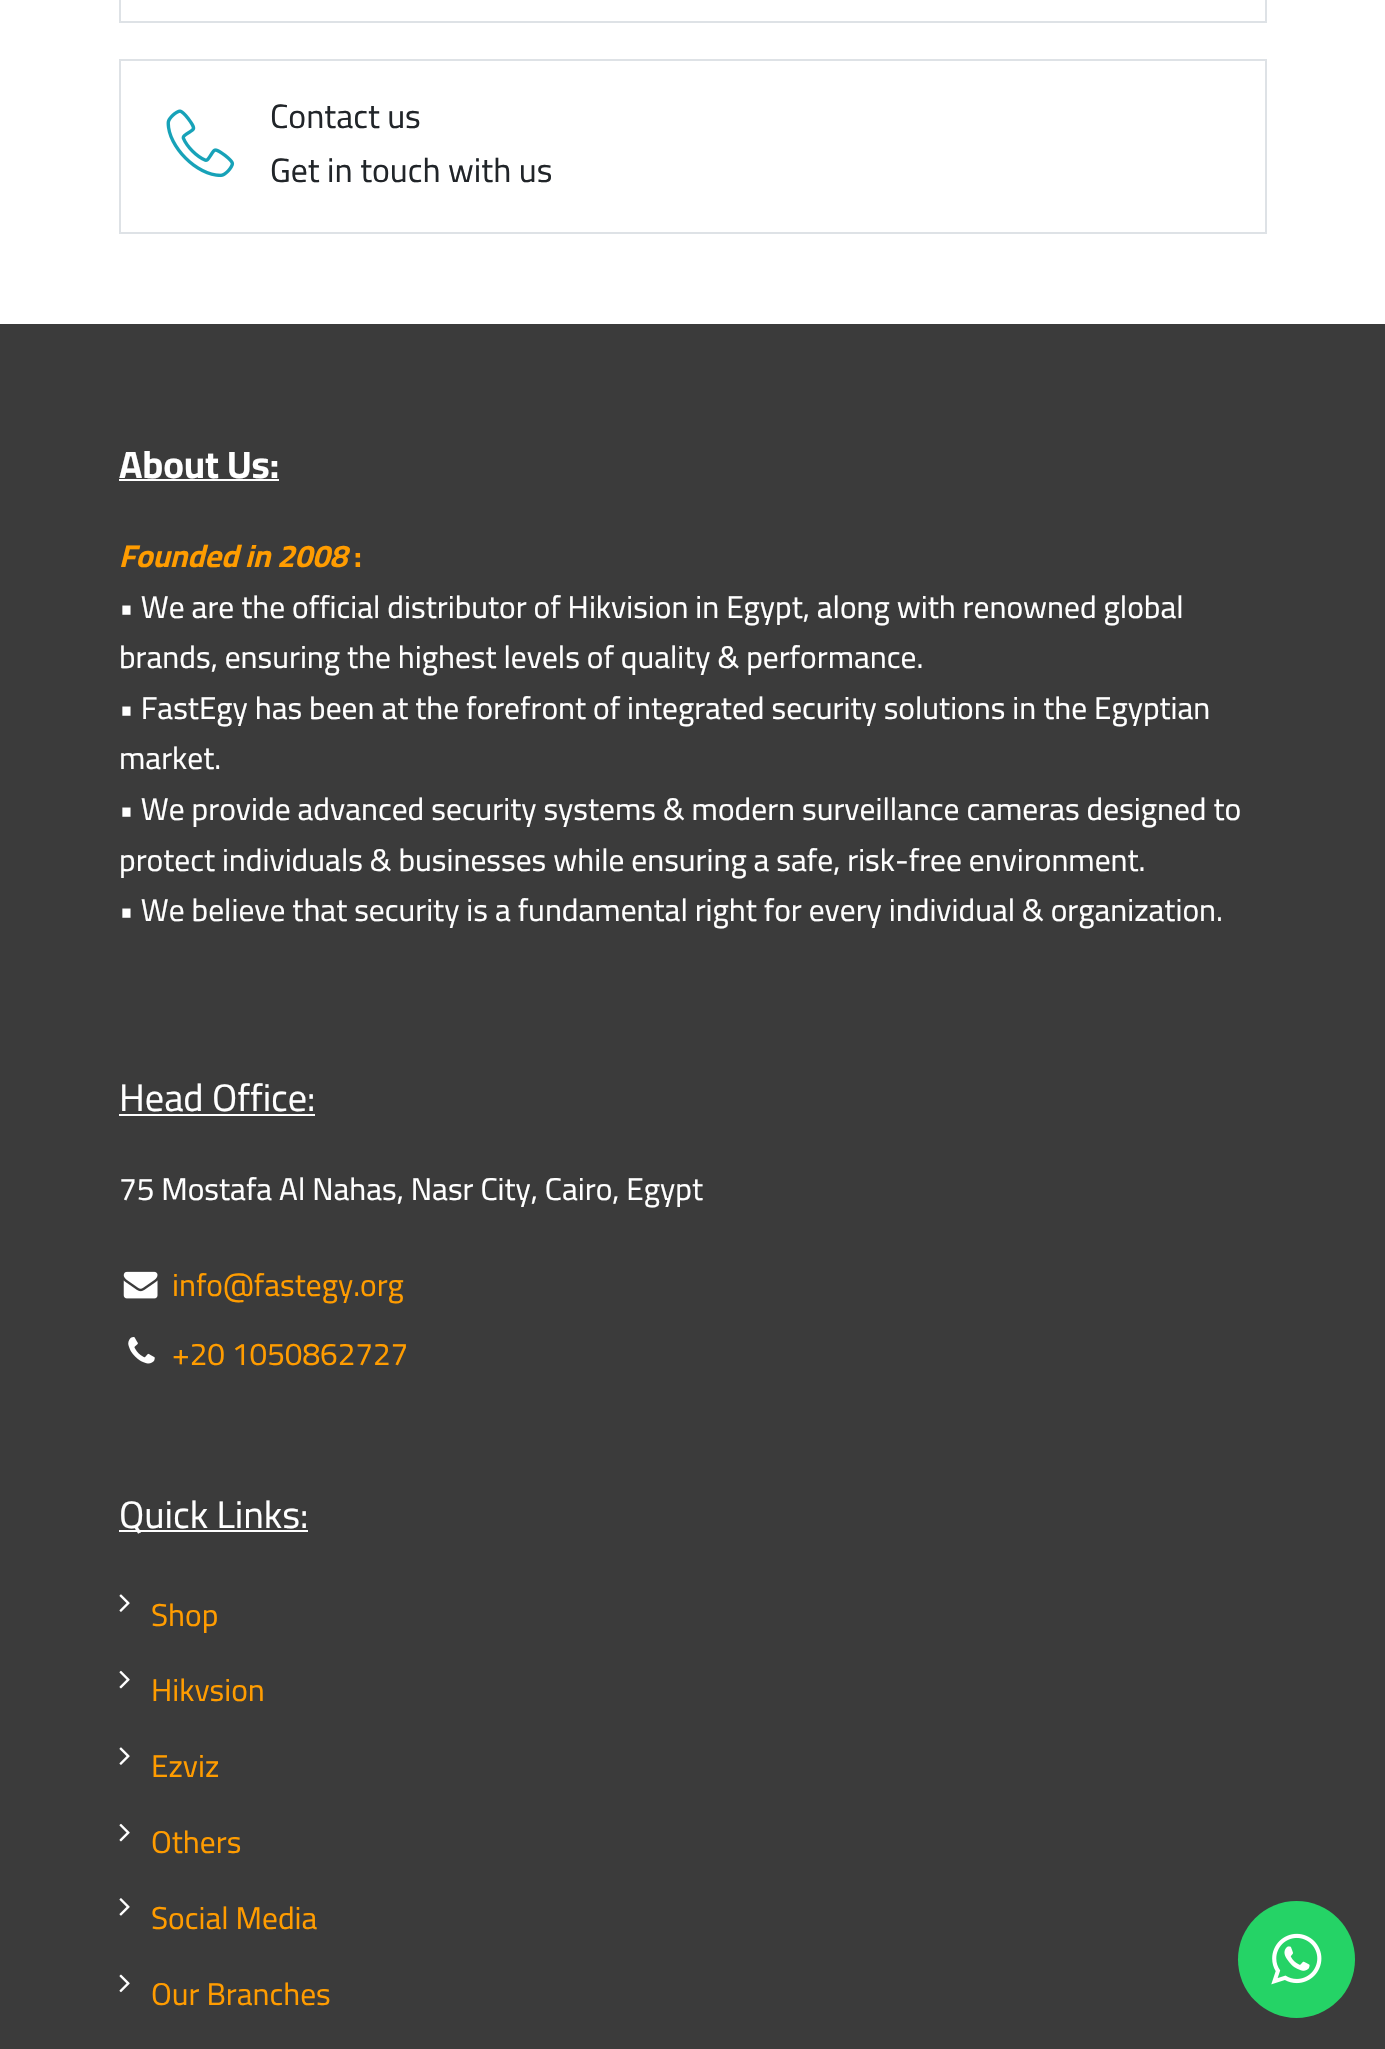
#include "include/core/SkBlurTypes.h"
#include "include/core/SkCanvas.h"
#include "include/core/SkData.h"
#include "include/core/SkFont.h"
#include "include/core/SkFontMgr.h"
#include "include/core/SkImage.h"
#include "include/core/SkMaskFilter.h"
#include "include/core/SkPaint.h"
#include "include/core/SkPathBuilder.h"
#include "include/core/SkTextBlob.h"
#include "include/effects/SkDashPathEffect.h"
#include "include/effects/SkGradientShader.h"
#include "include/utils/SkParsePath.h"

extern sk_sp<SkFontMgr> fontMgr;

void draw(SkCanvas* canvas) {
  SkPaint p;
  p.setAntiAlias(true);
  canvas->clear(SK_ColorWHITE);
  p.setStyle(SkPaint::kStroke_Style);
  p.setStrokeWidth(2);
  p.setColor(SkColorSetRGB(222, 226, 230));
  canvas->drawRect(SkRect::MakeLTRB(120, -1, 1266, 22), p);
  canvas->drawRect(SkRect::MakeLTRB(120, 60, 1266, 233), p);
  canvas->drawImageRect(SkImages::DeferredFromEncodedData(SkData::MakeFromFileName("images/1.png")), SkRect::MakeLTRB(166, 109, 235, 178), SkSamplingOptions());
  p.setStyle(SkPaint::kFill_Style);
  p.setColor(SkColorSetRGB(59, 59, 59));
  canvas->drawRect(SkRect::MakeLTRB(0, 324, 1385, 2049), p);
  p.setColor(SK_ColorWHITE);
  canvas->drawRect(SkRect::MakeLTRB(119, 479, 279, 481), p);
  canvas->drawRect(SkRect::MakeLTRB(119, 1114, 315, 1116), p);
  canvas->drawImageRect(SkImages::DeferredFromEncodedData(SkData::MakeFromFileName("images/2.png")), SkRect::MakeLTRB(123, 1271, 158, 1299), SkSamplingOptions());
  canvas->drawImageRect(SkImages::DeferredFromEncodedData(SkData::MakeFromFileName("images/3.png")), SkRect::MakeLTRB(128, 1337, 155, 1364), SkSamplingOptions());
  canvas->drawRect(SkRect::MakeLTRB(119, 1530, 308, 1532), p);
  canvas->drawImageRect(SkImages::DeferredFromEncodedData(SkData::MakeFromFileName("images/4.png")), SkRect::MakeLTRB(119, 1594, 130, 1612), SkSamplingOptions());
  canvas->drawImageRect(SkImages::DeferredFromEncodedData(SkData::MakeFromFileName("images/5.png")), SkRect::MakeLTRB(119, 1670, 130, 1689), SkSamplingOptions());
  canvas->drawImageRect(SkImages::DeferredFromEncodedData(SkData::MakeFromFileName("images/4.png")), SkRect::MakeLTRB(119, 1747, 130, 1765), SkSamplingOptions());
  canvas->drawImageRect(SkImages::DeferredFromEncodedData(SkData::MakeFromFileName("images/5.png")), SkRect::MakeLTRB(119, 1823, 130, 1842), SkSamplingOptions());
  canvas->drawImageRect(SkImages::DeferredFromEncodedData(SkData::MakeFromFileName("images/6.png")), SkRect::MakeLTRB(119, 1898, 130, 1916), SkSamplingOptions());
  canvas->drawImageRect(SkImages::DeferredFromEncodedData(SkData::MakeFromFileName("images/7.png")), SkRect::MakeLTRB(119, 1974, 130, 1993), SkSamplingOptions());
  p.setColor(SkColorSetRGB(37, 211, 102));
  canvas->drawCircle(1296.5f, 1959.5f, 58.5f, p);
  canvas->drawImageRect(SkImages::DeferredFromEncodedData(SkData::MakeFromFileName("images/8.png")), SkRect::MakeLTRB(1271, 1933, 1322, 1985), SkSamplingOptions());
  SkFont font1(fontMgr->matchFamilyStyle("Cairo", SkFontStyle::Normal()), 33.75f);
  font1.setSubpixel(true);
  p.setColor(SkColorSetRGB(33, 37, 41));
  canvas->drawString("Contact us", 270, 128, font1, p);
  canvas->drawString("Get in touch with us", 270, 182, font1, p);
  SkFont font2(fontMgr->matchFamilyStyle("Cairo", SkFontStyle::Bold()), 38.25f);
  font2.setSubpixel(true);
  p.setColor(SK_ColorWHITE);
  canvas->drawString("About Us:", 119, 478, font2, p);
  SkFont font3(fontMgr->matchFamilyStyle("Cairo", SkFontStyle::BoldItalic()), 31.5f);
  font3.setSubpixel(true);
  p.setColor(SkColorSetRGB(255, 156, 0));
  canvas->drawString("Founded in 2008", 119, 567, font3, p);
  SkFont font4(fontMgr->matchFamilyStyle("Cairo", SkFontStyle::Bold()), 31.5f);
  font4.setSubpixel(true);
  canvas->drawString(":", 354, 567, font4, p);
  SkFont font5(fontMgr->matchFamilyStyle("Cairo", SkFontStyle::Normal()), 31.5f);
  font5.setSubpixel(true);
  p.setColor(SK_ColorWHITE);
  canvas->drawString("• We are the official distributor of Hikvision in Egypt, along with renowned global", 119, 618, font5, p);
  canvas->drawString("brands, ensuring the highest levels of quality & performance.", 119, 668, font5, p);
  canvas->drawString("• FastEgy has been at the forefront of integrated security solutions in the Egyptian", 119, 719, font5, p);
  canvas->drawString("market.", 119, 769, font5, p);
  canvas->drawString("• We provide advanced security systems & modern surveillance cameras designed to", 119, 820, font5, p);
  canvas->drawString("protect individuals & businesses while ensuring a safe, risk-free environment.", 119, 871, font5, p);
  canvas->drawString("• We believe that security is a fundamental right for every individual & organization.", 119, 921, font5, p);
  SkFont font6(fontMgr->matchFamilyStyle("Cairo", SkFontStyle::Normal()), 38.25f);
  font6.setSubpixel(true);
  canvas->drawString("Head Office:", 119, 1111, font6, p);
  canvas->drawString("75 Mostafa Al Nahas, Nasr City, Cairo, Egypt", 119, 1200, font5, p);
  p.setColor(SkColorSetRGB(255, 156, 0));
  canvas->drawString("info@fastegy.org", 172, 1296, font5, p);
  canvas->drawString("+20 1050862727", 172, 1365, font5, p);
  p.setColor(SK_ColorWHITE);
  canvas->drawString("Quick Links:", 119, 1528, font6, p);
  p.setColor(SkColorSetRGB(255, 156, 0));
  canvas->drawString("Shop", 151, 1626, font5, p);
  canvas->drawString("Hikvsion", 151, 1701, font5, p);
  canvas->drawString("Ezviz", 151, 1777, font5, p);
  canvas->drawString("Others", 151, 1853, font5, p);
  canvas->drawString("Social Media", 151, 1929, font5, p);
  canvas->drawString("Our Branches", 151, 2005, font5, p);
}
